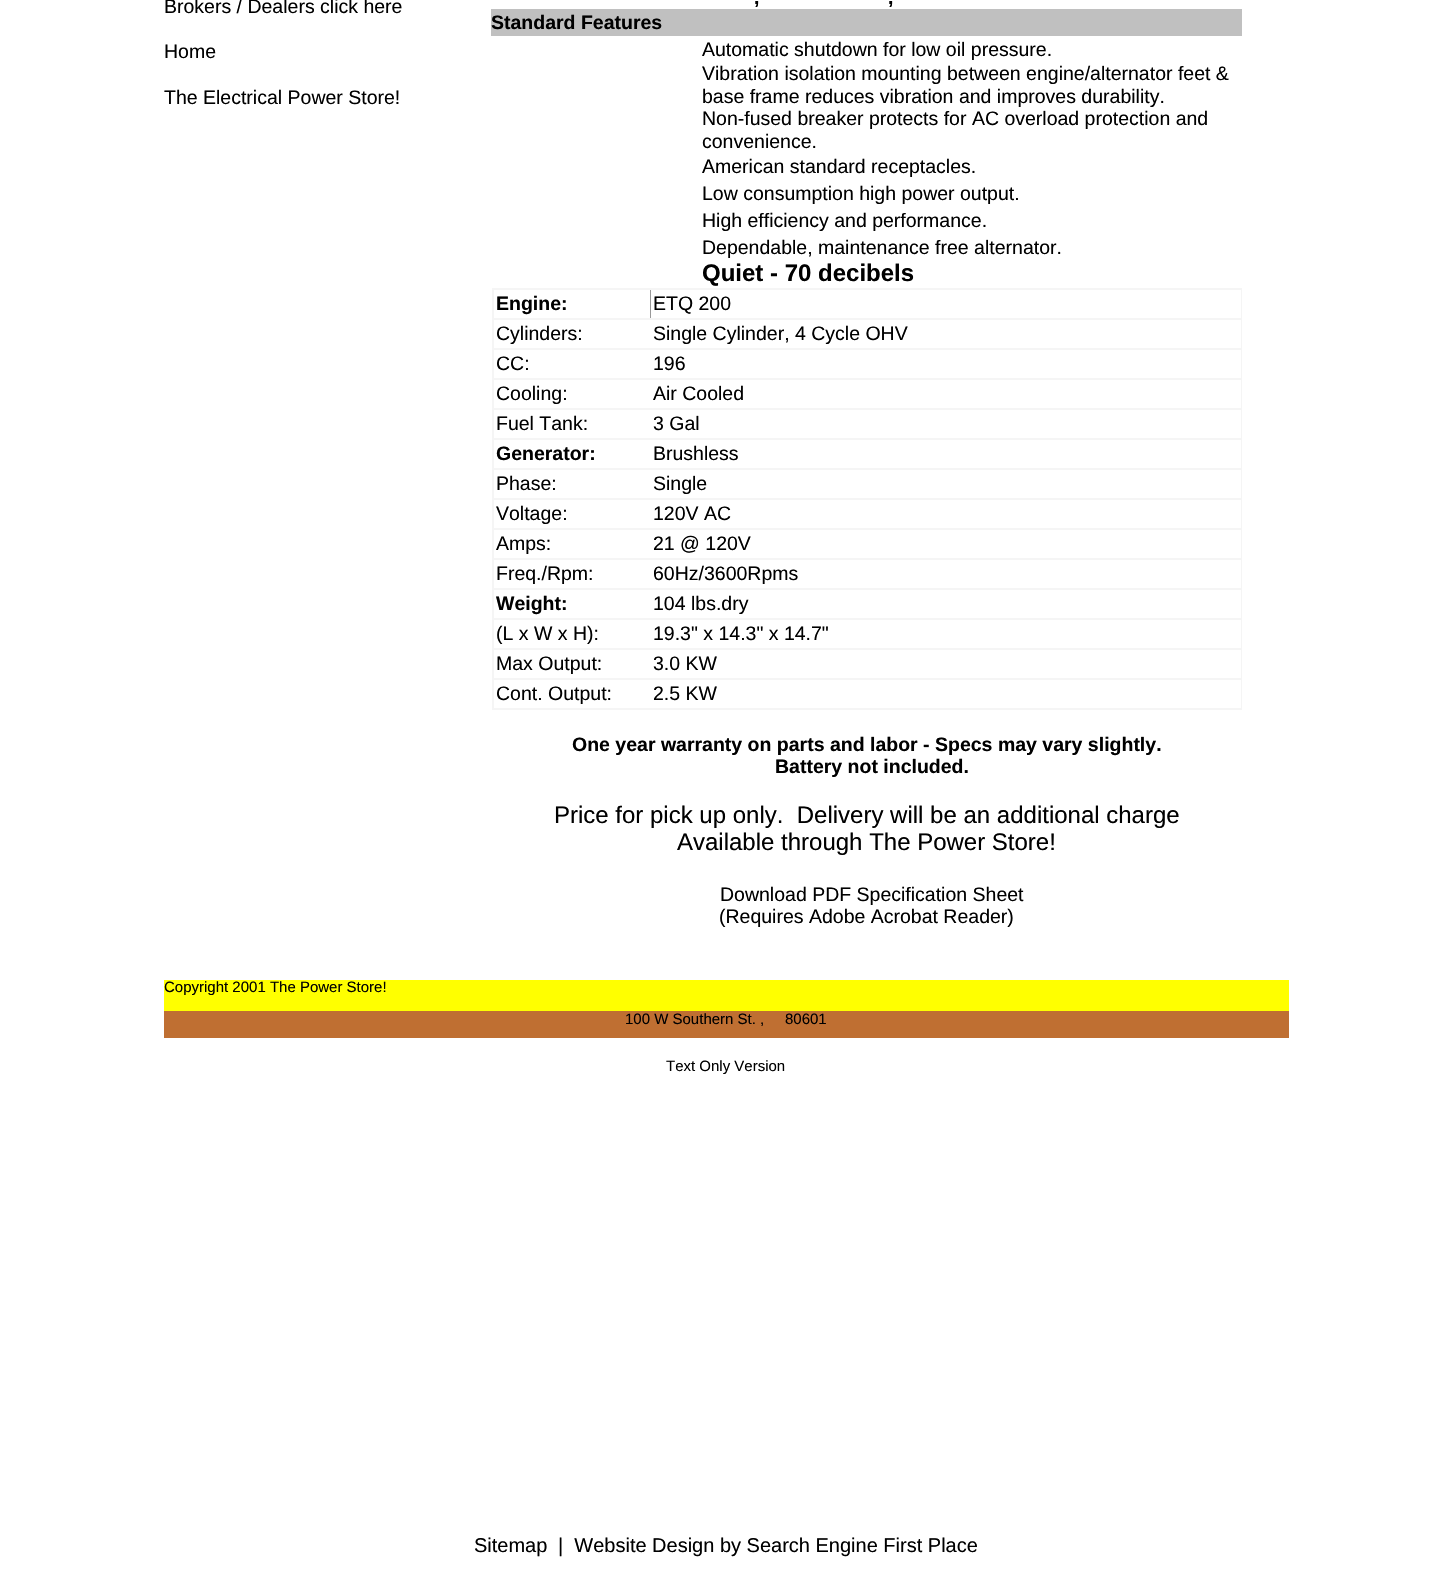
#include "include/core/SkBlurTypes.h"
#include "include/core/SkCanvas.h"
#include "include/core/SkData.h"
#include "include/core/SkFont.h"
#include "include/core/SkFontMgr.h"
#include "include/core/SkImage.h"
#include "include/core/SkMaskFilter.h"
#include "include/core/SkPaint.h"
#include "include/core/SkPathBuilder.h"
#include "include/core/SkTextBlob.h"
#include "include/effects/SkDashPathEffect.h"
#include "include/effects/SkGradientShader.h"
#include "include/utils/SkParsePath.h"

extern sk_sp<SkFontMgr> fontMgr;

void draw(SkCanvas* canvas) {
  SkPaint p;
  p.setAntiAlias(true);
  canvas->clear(SK_ColorWHITE);
  p.setColor(SkColorSetRGB(191, 111, 50));
  canvas->drawRect(SkRect::MakeLTRB(164, 1011, 1289, 1038), p);
  p.setColor(SkColorSetRGB(192, 192, 192));
  canvas->drawRect(SkRect::MakeLTRB(491, 9, 1242, 36), p);
  p.setColor(SkColorSetRGB(245, 245, 245));
  canvas->drawRect(SkRect::MakeLTRB(492, 288, 1242, 710), p);
  p.setColor(SkColorSetRGB(153, 153, 153));
  canvas->drawRect(SkRect::MakeLTRB(650, 290, 651, 318), p);
  p.setColor(SK_ColorWHITE);
  canvas->drawRect(SkRect::MakeLTRB(494, 290, 650, 318), p);
  canvas->drawRect(SkRect::MakeLTRB(651, 290, 1241, 318), p);
  canvas->drawRect(SkRect::MakeLTRB(494, 320, 1241, 348), p);
  canvas->drawRect(SkRect::MakeLTRB(494, 350, 1241, 378), p);
  canvas->drawRect(SkRect::MakeLTRB(494, 380, 1241, 408), p);
  canvas->drawRect(SkRect::MakeLTRB(494, 410, 1241, 438), p);
  canvas->drawRect(SkRect::MakeLTRB(494, 440, 1241, 468), p);
  canvas->drawRect(SkRect::MakeLTRB(494, 470, 1241, 498), p);
  canvas->drawRect(SkRect::MakeLTRB(494, 500, 1241, 528), p);
  canvas->drawRect(SkRect::MakeLTRB(494, 530, 1241, 558), p);
  canvas->drawRect(SkRect::MakeLTRB(494, 560, 1241, 588), p);
  canvas->drawRect(SkRect::MakeLTRB(494, 590, 1241, 618), p);
  canvas->drawRect(SkRect::MakeLTRB(494, 620, 1241, 648), p);
  canvas->drawRect(SkRect::MakeLTRB(494, 650, 1241, 678), p);
  canvas->drawRect(SkRect::MakeLTRB(494, 680, 1241, 708), p);
  p.setColor(SkColorSetRGB(255, 255, 0));
  canvas->drawRect(SkRect::MakeLTRB(164, 980, 1289, 1011), p);
  SkFont font1(fontMgr->matchFamilyStyle("Liberation Sans", SkFontStyle::Normal()), 19.5f);
  font1.setSubpixel(true);
  p.setColor(SK_ColorBLACK);
  canvas->drawString("Brokers / Dealers click here", 164, 13, font1, p);
  canvas->drawString("Home", 164, 58, font1, p);
  canvas->drawString("The Electrical Power Store!", 164, 104, font1, p);
  SkFont font2(fontMgr->matchFamilyStyle("Liberation Sans", SkFontStyle::Bold()), 19.5f);
  font2.setSubpixel(true);
  canvas->drawString(",", 754, 4, font2, p);
  canvas->drawString(",", 888, 4, font2, p);
  canvas->drawString("Standard Features", 491, 29, font2, p);
  canvas->drawString("Automatic shutdown for low oil pressure.", 702, 56, font1, p);
  canvas->drawString("Vibration isolation mounting between engine/alternator feet &", 702, 80, font1, p);
  canvas->drawString("base frame reduces vibration and improves durability.", 702, 103, font1, p);
  canvas->drawString("Non-fused breaker protects for AC overload protection and", 702, 125, font1, p);
  canvas->drawString("convenience.", 702, 148, font1, p);
  canvas->drawString("American standard receptacles.", 702, 173, font1, p);
  canvas->drawString("Low consumption high power output.", 702, 200, font1, p);
  canvas->drawString("High efficiency and performance.", 702, 227, font1, p);
  canvas->drawString("Dependable, maintenance free alternator.", 702, 254, font1, p);
  SkFont font3(fontMgr->matchFamilyStyle("Liberation Sans", SkFontStyle::Bold()), 24);
  font3.setSubpixel(true);
  canvas->drawString("Quiet - 70 decibels", 702, 281, font3, p);
  canvas->drawString("Engine:", 496, 310, font2, p);
  canvas->drawString("ETQ 200", 653, 310, font1, p);
  canvas->drawString("Cylinders:", 496, 340, font1, p);
  canvas->drawString("Single Cylinder, 4 Cycle OHV", 653, 340, font1, p);
  canvas->drawString("CC:", 496, 370, font1, p);
  canvas->drawString("196", 653, 370, font1, p);
  canvas->drawString("Cooling:", 496, 400, font1, p);
  canvas->drawString("Air Cooled", 653, 400, font1, p);
  canvas->drawString("Fuel Tank:", 496, 430, font1, p);
  canvas->drawString("3 Gal", 653, 430, font1, p);
  canvas->drawString("Generator:", 496, 460, font2, p);
  canvas->drawString("Brushless", 653, 460, font1, p);
  canvas->drawString("Phase:", 496, 490, font1, p);
  canvas->drawString("Single", 653, 490, font1, p);
  canvas->drawString("Voltage:", 496, 520, font1, p);
  canvas->drawString("120V AC", 653, 520, font1, p);
  canvas->drawString("Amps:", 496, 550, font1, p);
  canvas->drawString("21 @ 120V", 653, 550, font1, p);
  canvas->drawString("Freq./Rpm:", 496, 580, font1, p);
  canvas->drawString("60Hz/3600Rpms", 653, 580, font1, p);
  canvas->drawString("Weight:", 496, 610, font2, p);
  canvas->drawString("104 lbs.dry", 653, 610, font1, p);
  canvas->drawString("(L x W x H):", 496, 640, font1, p);
  canvas->drawString("19.3\" x 14.3\" x 14.7\"", 653, 640, font1, p);
  canvas->drawString("Max Output:", 496, 670, font1, p);
  canvas->drawString("3.0 KW", 653, 670, font1, p);
  canvas->drawString("Cont. Output:", 496, 700, font1, p);
  canvas->drawString("2.5 KW", 653, 700, font1, p);
  canvas->drawString("One year warranty on parts and labor - Specs may vary slightly.", 572, 751, font2, p);
  canvas->drawString("Battery not included.", 775, 773, font2, p);
  SkFont font4(fontMgr->matchFamilyStyle("Liberation Sans", SkFontStyle::Normal()), 24);
  font4.setSubpixel(true);
  canvas->drawString("Price for pick up only.  Delivery will be an additional charge", 554, 823, font4, p);
  canvas->drawString("Available through The Power Store!", 677, 850, font4, p);
  canvas->drawString("Download PDF Specification Sheet", 720, 901, font1, p);
  canvas->drawString("(Requires Adobe Acrobat Reader)", 719, 923, font1, p);
  SkFont font5(fontMgr->matchFamilyStyle("Liberation Sans", SkFontStyle::Normal()), 15);
  font5.setSubpixel(true);
  canvas->drawString("Copyright 2001 The Power Store!", 164, 992, font5, p);
  canvas->drawString("100 W Southern St. ,", 625, 1024, font5, p);
  canvas->drawString("80601", 785, 1024, font5, p);
  canvas->drawString("Text Only Version", 666, 1071, font5, p);
  SkFont font6(fontMgr->matchFamilyStyle("Liberation Sans", SkFontStyle::Normal()), 20);
  font6.setSubpixel(true);
  canvas->drawString("Sitemap", 474, 1552, font6, p);
  canvas->drawString("|  Website Design by Search Engine First Place", 558, 1552, font6, p);
}
